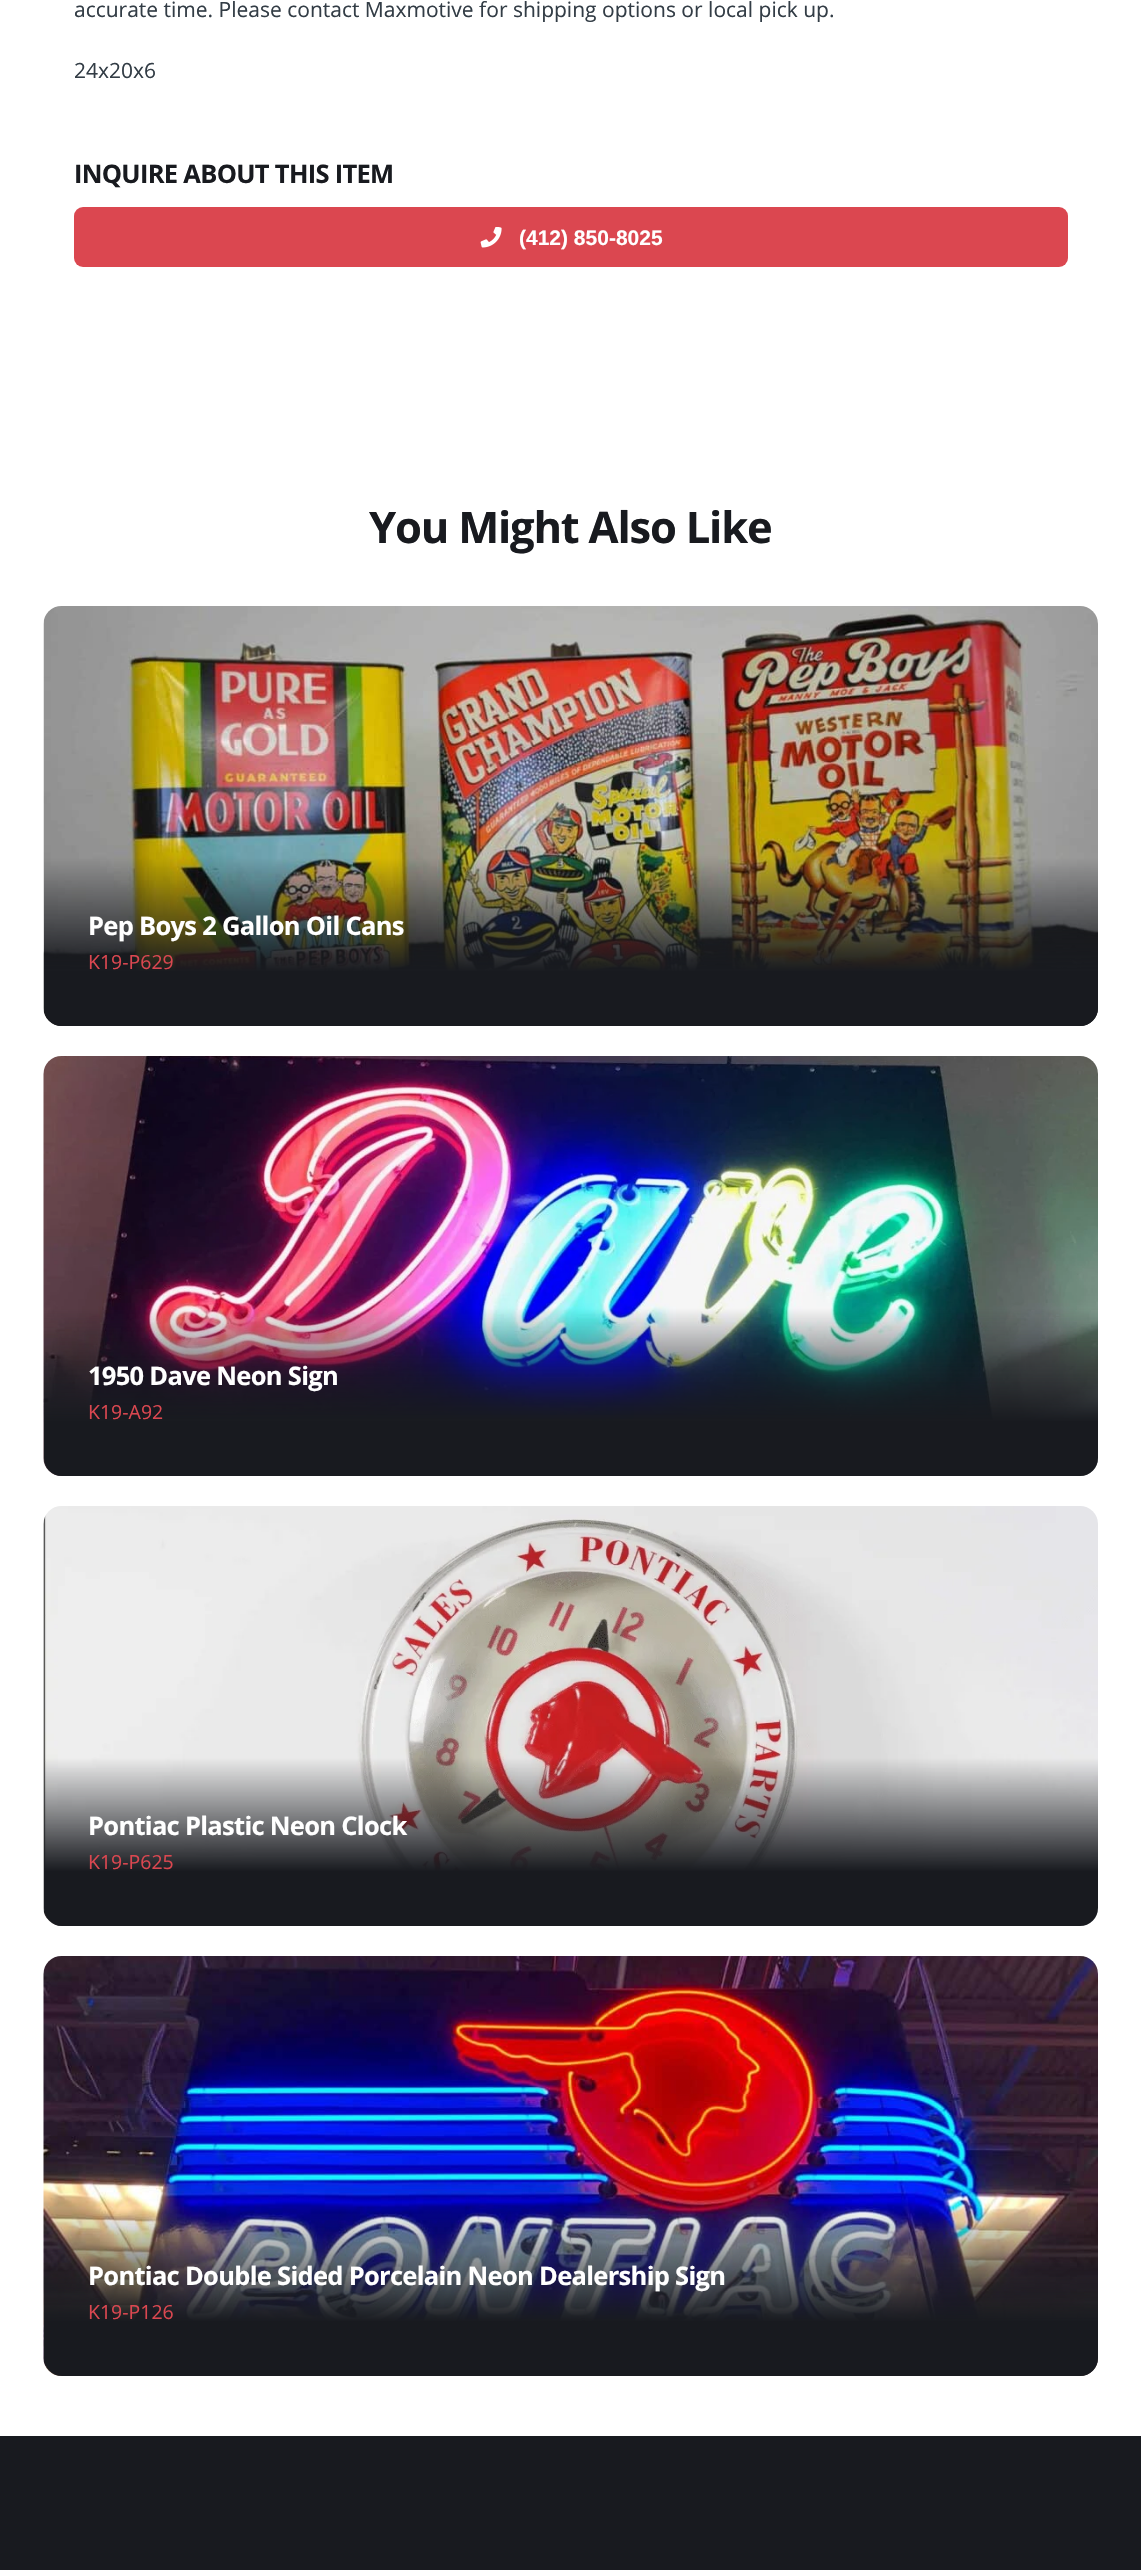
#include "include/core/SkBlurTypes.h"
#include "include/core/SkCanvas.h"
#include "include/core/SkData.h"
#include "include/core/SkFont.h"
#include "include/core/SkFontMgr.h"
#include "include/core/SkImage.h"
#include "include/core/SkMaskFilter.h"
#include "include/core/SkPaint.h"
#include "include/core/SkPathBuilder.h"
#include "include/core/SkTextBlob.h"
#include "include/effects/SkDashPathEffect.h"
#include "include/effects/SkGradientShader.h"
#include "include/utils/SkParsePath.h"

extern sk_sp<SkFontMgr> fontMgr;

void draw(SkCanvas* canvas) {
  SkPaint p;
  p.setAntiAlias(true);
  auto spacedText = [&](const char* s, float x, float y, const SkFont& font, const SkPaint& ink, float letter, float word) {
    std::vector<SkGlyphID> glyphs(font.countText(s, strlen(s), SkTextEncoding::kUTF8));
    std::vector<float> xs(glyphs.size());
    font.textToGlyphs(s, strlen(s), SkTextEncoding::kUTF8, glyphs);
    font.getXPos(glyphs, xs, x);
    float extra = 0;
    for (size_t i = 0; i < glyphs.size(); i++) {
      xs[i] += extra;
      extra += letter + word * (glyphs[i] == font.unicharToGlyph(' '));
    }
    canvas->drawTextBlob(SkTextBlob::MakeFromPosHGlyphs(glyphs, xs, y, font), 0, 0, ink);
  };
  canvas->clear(SK_ColorWHITE);
  p.setColor(SkColorSetRGB(219, 71, 80));
  canvas->drawRoundRect(SkRect::MakeLTRB(74, 207, 1068, 267), 9, 9, p);
  canvas->drawImageRect(SkImages::DeferredFromEncodedData(SkData::MakeFromFileName("images/1.png")), SkRect::MakeLTRB(480, 227, 502, 248), SkSamplingOptions());
  canvas->drawImageRect(SkImages::DeferredFromEncodedData(SkData::MakeFromFileName("images/2.png")), SkRect::MakeLTRB(43, 606, 1098, 1026), SkSamplingOptions());
  {
    const SkColor colors[] = {SkColorSetARGB(0, 24, 26, 31), SkColorSetRGB(24, 26, 31)};
    const float stops[] = {0.6f, 0.87f};
    const SkPoint ends[] = {{571, 606}, {571, 1026}};
    p.setShader(SkGradientShader::MakeLinear(ends, colors, stops, 2, SkTileMode::kClamp));
    p.setAlpha(255);
  }
  canvas->drawRoundRect(SkRect::MakeLTRB(44, 606, 1098, 1026), 18, 18, p);
  canvas->drawImageRect(SkImages::DeferredFromEncodedData(SkData::MakeFromFileName("images/3.png")), SkRect::MakeLTRB(43, 1056, 1098, 1476), SkSamplingOptions());
  {
    const SkColor colors[] = {SkColorSetARGB(0, 24, 26, 31), SkColorSetRGB(24, 26, 31)};
    const float stops[] = {0.6f, 0.87f};
    const SkPoint ends[] = {{571, 1056}, {571, 1476}};
    p.setShader(SkGradientShader::MakeLinear(ends, colors, stops, 2, SkTileMode::kClamp));
    p.setAlpha(255);
  }
  canvas->drawRoundRect(SkRect::MakeLTRB(44, 1056, 1098, 1476), 18, 18, p);
  canvas->drawImageRect(SkImages::DeferredFromEncodedData(SkData::MakeFromFileName("images/4.png")), SkRect::MakeLTRB(43, 1506, 1098, 1926), SkSamplingOptions());
  {
    const SkColor colors[] = {SkColorSetARGB(0, 24, 26, 31), SkColorSetRGB(24, 26, 31)};
    const float stops[] = {0.6f, 0.87f};
    const SkPoint ends[] = {{571, 1506}, {571, 1926}};
    p.setShader(SkGradientShader::MakeLinear(ends, colors, stops, 2, SkTileMode::kClamp));
    p.setAlpha(255);
  }
  canvas->drawRoundRect(SkRect::MakeLTRB(44, 1506, 1098, 1926), 18, 18, p);
  canvas->drawImageRect(SkImages::DeferredFromEncodedData(SkData::MakeFromFileName("images/5.png")), SkRect::MakeLTRB(43, 1956, 1098, 2376), SkSamplingOptions());
  {
    const SkColor colors[] = {SkColorSetARGB(0, 24, 26, 31), SkColorSetRGB(24, 26, 31)};
    const float stops[] = {0.6f, 0.87f};
    const SkPoint ends[] = {{571, 1956}, {571, 2376}};
    p.setShader(SkGradientShader::MakeLinear(ends, colors, stops, 2, SkTileMode::kClamp));
    p.setAlpha(255);
  }
  canvas->drawRoundRect(SkRect::MakeLTRB(44, 1956, 1098, 2376), 18, 18, p);
  p.setShader(nullptr);
  p.setColor(SkColorSetRGB(24, 26, 31));
  canvas->drawRect(SkRect::MakeLTRB(0, 2436, 1141, 2570), p);
  SkFont font1(fontMgr->matchFamilyStyle("Open Sans", SkFontStyle::Normal()), 21);
  font1.setSubpixel(true);
  p.setColor(SkColorSetRGB(51, 61, 70));
  canvas->drawString("accurate time. Please contact Maxmotive for shipping options or local pick up.", 74, 17, font1, p);
  canvas->drawString("24x20x6", 74, 78, font1, p);
  SkFont font2(fontMgr->matchFamilyStyle("Open Sans", SkFontStyle::Bold()), 25.5f);
  font2.setSubpixel(true);
  p.setColor(SkColorSetRGB(24, 26, 31));
  spacedText("INQUIRE ABOUT THIS ITEM", 74, 183, font2, p, -0.7f, 0);
  SkFont font3(fontMgr->matchFamilyStyle("Liberation Sans", SkFontStyle::Bold()), 21);
  font3.setSubpixel(true);
  p.setColor(SK_ColorWHITE);
  canvas->drawString("(412) 850-8025", 519, 245, font3, p);
  SkFont font4(fontMgr->matchFamilyStyle("Open Sans", SkFontStyle::Bold()), 43.5f);
  font4.setSubpixel(true);
  p.setColor(SkColorSetRGB(24, 26, 31));
  spacedText("You Might Also Like", 369, 543, font4, p, -1.2f, 0);
  p.setColor(SK_ColorWHITE);
  spacedText("Pep Boys 2 Gallon Oil Cans", 88, 935, font2, p, -0.7f, 0);
  SkFont font5(fontMgr->matchFamilyStyle("Open Sans", SkFontStyle::Normal()), 19.5f);
  font5.setSubpixel(true);
  p.setColor(SkColorSetRGB(219, 71, 80));
  canvas->drawString("K19-P629", 88, 969, font5, p);
  p.setColor(SK_ColorWHITE);
  spacedText("1950 Dave Neon Sign", 88, 1385, font2, p, -0.7f, 0);
  p.setColor(SkColorSetRGB(219, 71, 80));
  canvas->drawString("K19-A92", 88, 1419, font5, p);
  p.setColor(SK_ColorWHITE);
  spacedText("Pontiac Plastic Neon Clock", 88, 1835, font2, p, -0.7f, 0);
  p.setColor(SkColorSetRGB(219, 71, 80));
  canvas->drawString("K19-P625", 88, 1869, font5, p);
  p.setColor(SK_ColorWHITE);
  spacedText("Pontiac Double Sided Porcelain Neon Dealership Sign", 88, 2285, font2, p, -0.7f, 0);
  p.setColor(SkColorSetRGB(219, 71, 80));
  canvas->drawString("K19-P126", 88, 2319, font5, p);
}
